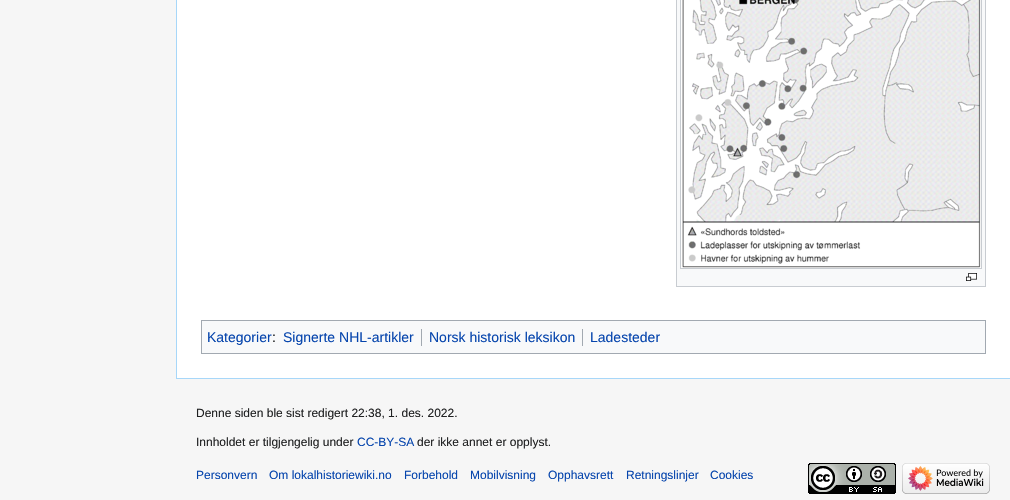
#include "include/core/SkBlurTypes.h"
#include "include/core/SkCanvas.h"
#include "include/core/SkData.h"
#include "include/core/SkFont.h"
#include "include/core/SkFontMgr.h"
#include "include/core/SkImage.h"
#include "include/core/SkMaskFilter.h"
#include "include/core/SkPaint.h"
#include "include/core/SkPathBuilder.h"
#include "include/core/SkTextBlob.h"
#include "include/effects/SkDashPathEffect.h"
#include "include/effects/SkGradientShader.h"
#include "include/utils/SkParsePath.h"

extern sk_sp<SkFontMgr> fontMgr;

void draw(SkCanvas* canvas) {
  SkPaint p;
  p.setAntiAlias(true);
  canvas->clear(SkColorSetRGB(246, 246, 246));
  p.setColor(SK_ColorWHITE);
  canvas->drawRect(SkRect::MakeLTRB(177, 0, 1010, 378), p);
  p.setColor(SkColorSetRGB(167, 215, 249));
  canvas->drawRect(SkRect::MakeLTRB(176, 378, 1010, 379), p);
  canvas->drawRect(SkRect::MakeLTRB(176, 0, 177, 379), p);
  p.setColor(SkColorSetRGB(248, 249, 250));
  canvas->drawRect(SkRect::MakeLTRB(676.5f, -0.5f, 985.5f, 286.5f), p);
  p.setStyle(SkPaint::kStroke_Style);
  p.setStrokeWidth(1);
  p.setColor(SkColorSetRGB(200, 204, 209));
  canvas->drawRect(SkRect::MakeLTRB(676.5f, -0.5f, 985.5f, 286.5f), p);
  p.setStyle(SkPaint::kFill_Style);
  p.setColor(SK_ColorWHITE);
  canvas->drawRect(SkRect::MakeLTRB(681, 0, 682, 268), p);
  p.setStyle(SkPaint::kStroke_Style);
  p.setColor(SkColorSetRGB(200, 204, 209));
  canvas->drawRect(SkRect::MakeLTRB(680.5f, -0.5f, 981.5f, 268.5f), p);
  canvas->drawImageRect(SkImages::DeferredFromEncodedData(SkData::MakeFromFileName("images/1.png")), SkRect::MakeLTRB(682, 0, 981, 268), SkSamplingOptions());
  canvas->drawImageRect(SkImages::DeferredFromEncodedData(SkData::MakeFromFileName("images/2.png")), SkRect::MakeLTRB(966, 273, 977, 281), SkSamplingOptions());
  p.setStyle(SkPaint::kFill_Style);
  p.setColor(SkColorSetRGB(248, 249, 250));
  canvas->drawRect(SkRect::MakeLTRB(201.5f, 320.5f, 985.5f, 353.5f), p);
  p.setStyle(SkPaint::kStroke_Style);
  p.setColor(SkColorSetRGB(162, 169, 177));
  canvas->drawRect(SkRect::MakeLTRB(201.5f, 320.5f, 985.5f, 353.5f), p);
  p.setStyle(SkPaint::kFill_Style);
  canvas->drawRect(SkRect::MakeLTRB(421, 329, 422, 346), p);
  canvas->drawRect(SkRect::MakeLTRB(582, 329, 583, 346), p);
  canvas->drawImageRect(SkImages::DeferredFromEncodedData(SkData::MakeFromFileName("images/3.png")), SkRect::MakeLTRB(808, 463, 896, 494), SkSamplingOptions());
  canvas->drawImageRect(SkImages::DeferredFromEncodedData(SkData::MakeFromFileName("images/4.png")), SkRect::MakeLTRB(902, 463, 990, 494), SkSamplingOptions());
  SkFont font1(fontMgr->matchFamilyStyle("Liberation Sans", SkFontStyle::Normal()), 14);
  font1.setSubpixel(true);
  p.setColor(SkColorSetRGB(6, 69, 173));
  canvas->drawString("Kategorier", 207, 342, font1, p);
  p.setColor(SkColorSetRGB(32, 33, 34));
  canvas->drawString(":", 272, 342, font1, p);
  p.setColor(SkColorSetRGB(6, 69, 173));
  canvas->drawString("Signerte NHL-artikler", 283, 342, font1, p);
  canvas->drawString("Norsk historisk leksikon", 429, 342, font1, p);
  canvas->drawString("Ladesteder", 590, 342, font1, p);
  SkFont font2(fontMgr->matchFamilyStyle("Liberation Sans", SkFontStyle::Normal()), 12);
  font2.setSubpixel(true);
  p.setColor(SkColorSetRGB(32, 33, 34));
  canvas->drawString("Denne siden ble sist redigert 22:38, 1. des. 2022.", 196, 417, font2, p);
  canvas->drawString("Innholdet er tilgjengelig under", 196, 446, font2, p);
  p.setColor(SkColorSetRGB(6, 69, 173));
  canvas->drawString("CC-BY-SA", 357, 446, font2, p);
  p.setColor(SkColorSetRGB(32, 33, 34));
  canvas->drawString("der ikke annet er opplyst.", 417, 446, font2, p);
  p.setColor(SkColorSetRGB(6, 69, 173));
  canvas->drawString("Personvern", 196, 479, font2, p);
  canvas->drawString("Om lokalhistoriewiki.no", 269, 479, font2, p);
  canvas->drawString("Forbehold", 404, 479, font2, p);
  canvas->drawString("Mobilvisning", 470, 479, font2, p);
  canvas->drawString("Opphavsrett", 548, 479, font2, p);
  canvas->drawString("Retningslinjer", 626, 479, font2, p);
  canvas->drawString("Cookies", 710, 479, font2, p);
}
